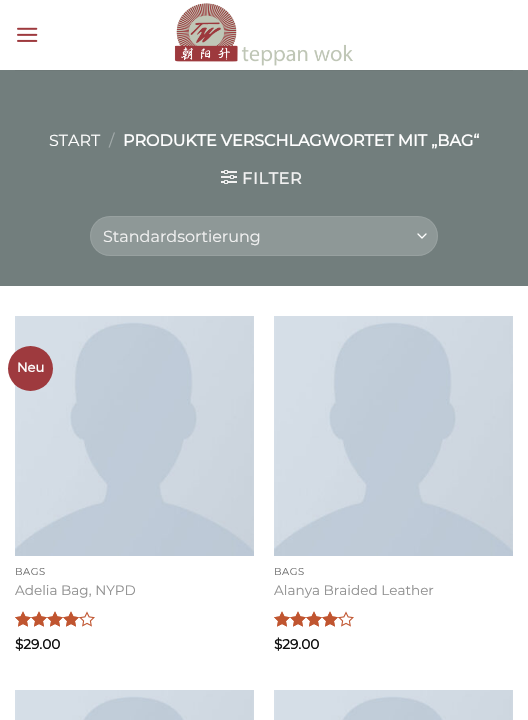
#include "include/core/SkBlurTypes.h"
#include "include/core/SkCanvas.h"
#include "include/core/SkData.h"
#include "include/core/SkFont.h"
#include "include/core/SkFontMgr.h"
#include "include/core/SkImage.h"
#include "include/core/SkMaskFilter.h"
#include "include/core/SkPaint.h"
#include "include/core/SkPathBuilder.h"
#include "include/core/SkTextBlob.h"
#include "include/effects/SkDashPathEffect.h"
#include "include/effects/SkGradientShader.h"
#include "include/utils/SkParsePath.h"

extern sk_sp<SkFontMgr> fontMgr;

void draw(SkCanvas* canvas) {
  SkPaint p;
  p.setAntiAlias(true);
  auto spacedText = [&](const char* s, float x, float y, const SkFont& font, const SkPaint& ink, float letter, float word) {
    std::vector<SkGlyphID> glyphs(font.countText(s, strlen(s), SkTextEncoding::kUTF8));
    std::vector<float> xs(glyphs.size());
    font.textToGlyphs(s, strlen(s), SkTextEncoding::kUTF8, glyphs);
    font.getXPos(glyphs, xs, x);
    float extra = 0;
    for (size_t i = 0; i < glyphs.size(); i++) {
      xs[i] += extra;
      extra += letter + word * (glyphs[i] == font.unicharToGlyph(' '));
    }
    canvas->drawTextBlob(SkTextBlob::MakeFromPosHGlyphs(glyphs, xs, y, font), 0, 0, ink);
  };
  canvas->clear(SK_ColorWHITE);
  canvas->drawImageRect(SkImages::DeferredFromEncodedData(SkData::MakeFromFileName("images/1.png")), SkRect::MakeLTRB(17, 27, 38, 42), SkSamplingOptions());
  canvas->drawImageRect(SkImages::DeferredFromEncodedData(SkData::MakeFromFileName("images/2.png")), SkRect::MakeLTRB(174, 3, 353, 66), SkSamplingOptions());
  p.setColor(SkColorSetRGB(114, 126, 125));
  canvas->drawRect(SkRect::MakeLTRB(0, 70, 528, 286), p);
  p.setColor(SkColorSetRGB(110, 121, 120));
  canvas->drawRect(SkRect::MakeLTRB(15, 70, 513, 71), p);
  canvas->drawImageRect(SkImages::DeferredFromEncodedData(SkData::MakeFromFileName("images/3.png")), SkRect::MakeLTRB(221, 170, 237, 184), SkSamplingOptions());
  p.setColor(SkColorSetRGB(142, 152, 151));
  canvas->drawRoundRect(SkRect::MakeLTRB(90, 216, 438, 256), 20, 20, p);
  p.setStyle(SkPaint::kStroke_Style);
  p.setStrokeWidth(1.3f);
  p.setStrokeCap(SkPaint::kRound_Cap);
  p.setStrokeJoin(SkPaint::kRound_Join);
  p.setColor(SK_ColorWHITE);
  canvas->drawPath(SkPathBuilder().moveTo(418, 234).lineTo(422, 238).lineTo(426, 234).detach(), p);
  p.setStrokeWidth(1);
  p.setStrokeCap(SkPaint::kButt_Cap);
  p.setStrokeJoin(SkPaint::kMiter_Join);
  p.setColor(SkColorSetARGB(23, 255, 255, 255));
  canvas->drawRoundRect(SkRect::MakeLTRB(90.5f, 216.5f, 437.5f, 255.5f), 19.5f, 19.5f, p);
  canvas->drawImageRect(SkImages::DeferredFromEncodedData(SkData::MakeFromFileName("images/4.png")), SkRect::MakeLTRB(15, 316, 254, 556), SkSamplingOptions());
  p.setStyle(SkPaint::kFill_Style);
  p.setColor(SkColorSetRGB(158, 58, 62));
  canvas->drawCircle(30.5f, 368.5f, 22.5f, p);
  canvas->drawImageRect(SkImages::DeferredFromEncodedData(SkData::MakeFromFileName("images/5.png")), SkRect::MakeLTRB(15, 611, 95, 627), SkSamplingOptions());
  canvas->drawImageRect(SkImages::DeferredFromEncodedData(SkData::MakeFromFileName("images/6.png")), SkRect::MakeLTRB(15, 611, 80, 627), SkSamplingOptions());
  canvas->drawImageRect(SkImages::DeferredFromEncodedData(SkData::MakeFromFileName("images/4.png")), SkRect::MakeLTRB(274, 316, 513, 556), SkSamplingOptions());
  canvas->drawImageRect(SkImages::DeferredFromEncodedData(SkData::MakeFromFileName("images/5.png")), SkRect::MakeLTRB(274, 611, 354, 627), SkSamplingOptions());
  canvas->drawImageRect(SkImages::DeferredFromEncodedData(SkData::MakeFromFileName("images/6.png")), SkRect::MakeLTRB(274, 611, 339, 627), SkSamplingOptions());
  canvas->drawImageRect(SkImages::DeferredFromEncodedData(SkData::MakeFromFileName("images/7.png")), SkRect::MakeLTRB(15, 690, 254, 720), SkSamplingOptions());
  canvas->drawImageRect(SkImages::DeferredFromEncodedData(SkData::MakeFromFileName("images/7.png")), SkRect::MakeLTRB(274, 690, 513, 720), SkSamplingOptions());
  SkFont font1(fontMgr->matchFamilyStyle("Montserrat", SkFontStyle(100, SkFontStyle::kNormal_Width, SkFontStyle::kUpright_Slant)), 16);
  font1.setSubpixel(true);
  p.setColor(SK_ColorWHITE);
  canvas->drawString("START", 49, 146, font1, p);
  p.setColor(SkColorSetRGB(163, 171, 171));
  canvas->drawString("/", 109, 146, font1, p);
  SkFont font2(fontMgr->matchFamilyStyle("Montserrat", SkFontStyle::Bold()), 16);
  font2.setSubpixel(true);
  p.setColor(SK_ColorWHITE);
  canvas->drawString("PRODUKTE VERSCHLAGWORTET MIT „BAG“", 123, 146, font2, p);
  p.setColor(SkColorSetRGB(241, 241, 241));
  spacedText("FILTER", 242, 184, font2, p, 0.75f, 0);
  canvas->drawString("Standardsortierung", 103, 242, font1, p);
  SkFont font3(fontMgr->matchFamilyStyle("Montserrat", SkFontStyle::Bold()), 13);
  font3.setSubpixel(true);
  p.setColor(SK_ColorWHITE);
  canvas->drawString("Neu", 17, 372, font3, p);
  SkFont font4(fontMgr->matchFamilyStyle("Montserrat", SkFontStyle(100, SkFontStyle::kNormal_Width, SkFontStyle::kUpright_Slant)), 10);
  font4.setSubpixel(true);
  p.setColor(SkColorSetRGB(110, 110, 110));
  spacedText("BAGS", 15, 575, font4, p, 0.5f, 0);
  SkFont font5(fontMgr->matchFamilyStyle("Montserrat", SkFontStyle(100, SkFontStyle::kNormal_Width, SkFontStyle::kUpright_Slant)), 13.6f);
  font5.setSubpixel(true);
  p.setColor(SkColorSetRGB(145, 145, 145));
  canvas->drawString("Adelia Bag, NYPD", 15, 595, font5, p);
  SkFont font6(fontMgr->matchFamilyStyle("Montserrat", SkFontStyle::Bold()), 13.6f);
  font6.setSubpixel(true);
  p.setColor(SkColorSetRGB(17, 17, 17));
  canvas->drawString("$29.00", 15, 649, font6, p);
  p.setColor(SkColorSetRGB(110, 110, 110));
  spacedText("BAGS", 274, 575, font4, p, 0.5f, 0);
  p.setColor(SkColorSetRGB(145, 145, 145));
  canvas->drawString("Alanya Braided Leather", 274, 595, font5, p);
  p.setColor(SkColorSetRGB(17, 17, 17));
  canvas->drawString("$29.00", 274, 649, font6, p);
}
